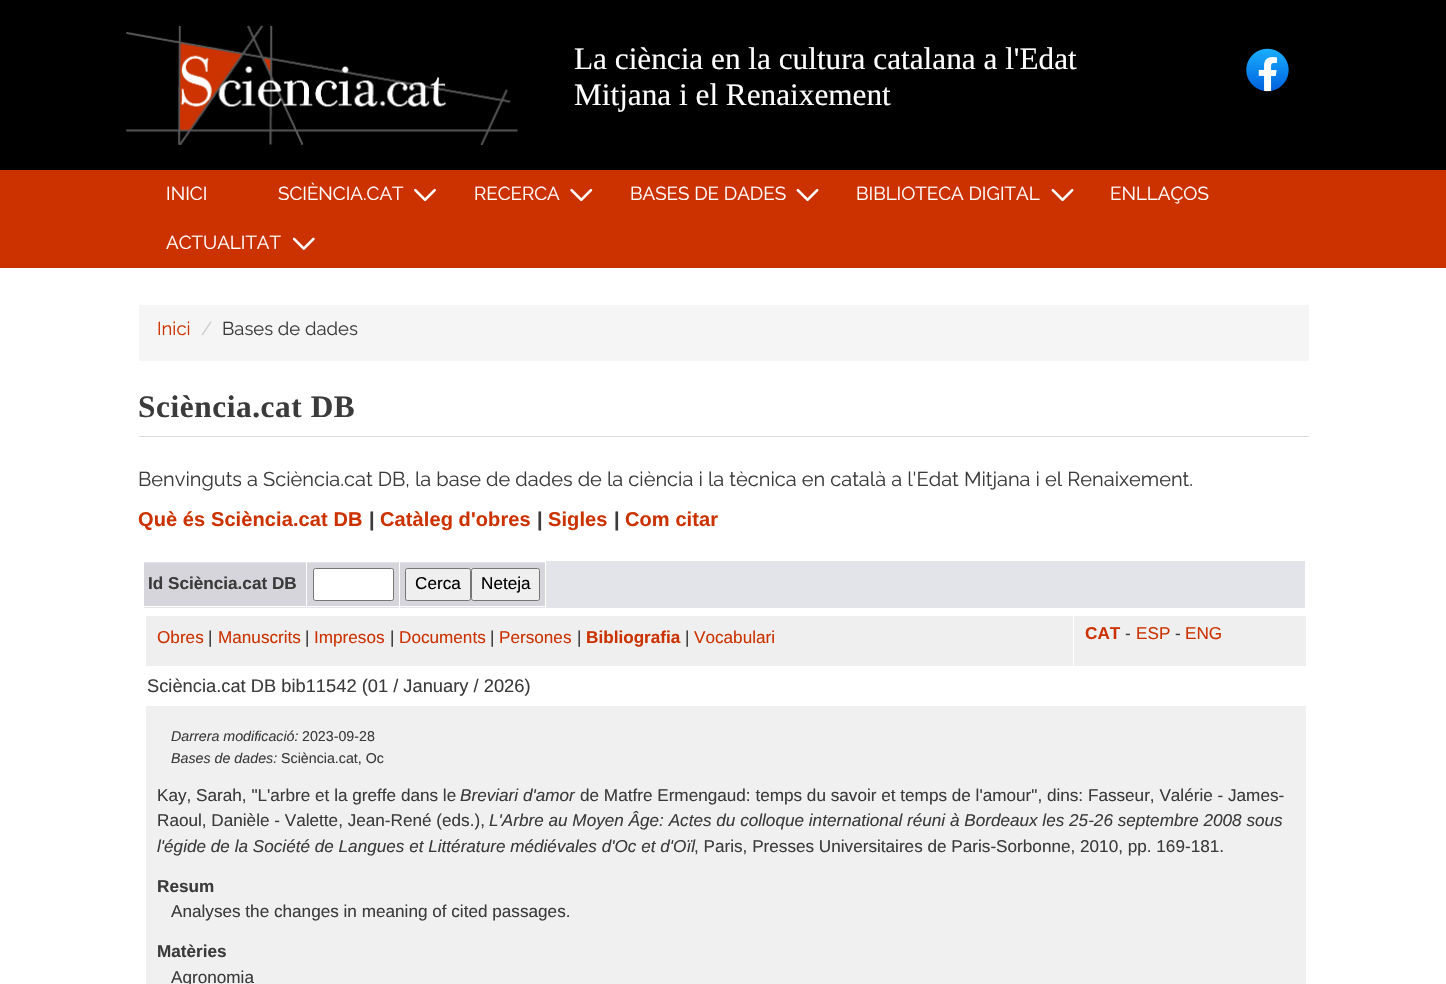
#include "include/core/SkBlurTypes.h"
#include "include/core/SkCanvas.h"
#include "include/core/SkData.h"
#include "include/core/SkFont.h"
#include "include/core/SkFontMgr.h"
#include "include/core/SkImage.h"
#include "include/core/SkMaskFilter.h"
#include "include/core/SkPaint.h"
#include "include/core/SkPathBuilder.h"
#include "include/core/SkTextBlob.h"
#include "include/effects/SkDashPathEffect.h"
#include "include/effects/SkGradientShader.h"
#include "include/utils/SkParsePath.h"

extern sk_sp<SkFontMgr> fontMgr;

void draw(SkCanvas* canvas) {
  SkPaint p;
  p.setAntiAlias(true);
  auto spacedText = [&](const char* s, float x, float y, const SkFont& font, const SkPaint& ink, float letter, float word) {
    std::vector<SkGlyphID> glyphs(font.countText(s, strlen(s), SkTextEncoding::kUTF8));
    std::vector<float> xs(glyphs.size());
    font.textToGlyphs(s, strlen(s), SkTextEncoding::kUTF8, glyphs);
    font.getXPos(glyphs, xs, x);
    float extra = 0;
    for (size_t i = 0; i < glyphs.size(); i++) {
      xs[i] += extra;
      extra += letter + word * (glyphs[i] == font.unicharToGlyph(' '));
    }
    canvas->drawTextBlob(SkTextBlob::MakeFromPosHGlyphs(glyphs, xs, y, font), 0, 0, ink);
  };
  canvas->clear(SK_ColorWHITE);
  p.setColor(SK_ColorBLACK);
  canvas->drawRect(SkRect::MakeLTRB(0, 0, 1446, 170), p);
  canvas->drawImageRect(SkImages::DeferredFromEncodedData(SkData::MakeFromFileName("images/1.png")), SkRect::MakeLTRB(126, 25, 518, 145), SkSamplingOptions());
  canvas->drawImageRect(SkImages::DeferredFromEncodedData(SkData::MakeFromFileName("images/2.png")), SkRect::MakeLTRB(1246, 48, 1289, 92), SkSamplingOptions());
  p.setColor(SkColorSetRGB(204, 50, 0));
  canvas->drawRect(SkRect::MakeLTRB(0, 170, 1446, 268), p);
  canvas->drawImageRect(SkImages::DeferredFromEncodedData(SkData::MakeFromFileName("images/3.png")), SkRect::MakeLTRB(414, 188, 436, 202), SkSamplingOptions());
  canvas->drawImageRect(SkImages::DeferredFromEncodedData(SkData::MakeFromFileName("images/4.png")), SkRect::MakeLTRB(570, 188, 593, 202), SkSamplingOptions());
  canvas->drawImageRect(SkImages::DeferredFromEncodedData(SkData::MakeFromFileName("images/5.png")), SkRect::MakeLTRB(796, 188, 819, 202), SkSamplingOptions());
  canvas->drawImageRect(SkImages::DeferredFromEncodedData(SkData::MakeFromFileName("images/5.png")), SkRect::MakeLTRB(1051, 188, 1074, 202), SkSamplingOptions());
  canvas->drawImageRect(SkImages::DeferredFromEncodedData(SkData::MakeFromFileName("images/6.png")), SkRect::MakeLTRB(293, 237, 315, 250), SkSamplingOptions());
  p.setColor(SkColorSetRGB(245, 245, 245));
  canvas->drawRect(SkRect::MakeLTRB(139, 305, 1309, 361), p);
  p.setColor(SkColorSetRGB(221, 221, 221));
  canvas->drawRect(SkRect::MakeLTRB(139, 436, 1309, 437), p);
  p.setColor(SkColorSetRGB(227, 227, 234));
  canvas->drawRect(SkRect::MakeLTRB(144, 561, 1305, 608), p);
  p.setColor(SkColorSetRGB(213, 213, 219));
  canvas->drawRect(SkRect::MakeLTRB(144, 563, 545, 606), p);
  p.setColor(SK_ColorWHITE);
  canvas->drawRect(SkRect::MakeLTRB(399, 561, 546, 562), p);
  canvas->drawRect(SkRect::MakeLTRB(545, 561, 546, 608), p);
  canvas->drawRect(SkRect::MakeLTRB(399, 606, 546, 607), p);
  canvas->drawRect(SkRect::MakeLTRB(399, 561, 400, 608), p);
  canvas->drawRect(SkRect::MakeLTRB(306, 561, 400, 562), p);
  canvas->drawRect(SkRect::MakeLTRB(306, 606, 400, 607), p);
  canvas->drawRect(SkRect::MakeLTRB(306, 561, 307, 608), p);
  canvas->drawRect(SkRect::MakeLTRB(143, 561, 308, 562), p);
  canvas->drawRect(SkRect::MakeLTRB(143, 606, 308, 607), p);
  canvas->drawRoundRect(SkRect::MakeLTRB(313.5f, 568.5f, 393.5f, 600.5f), 2, 2, p);
  p.setStyle(SkPaint::kStroke_Style);
  p.setStrokeWidth(1);
  p.setColor(SkColorSetRGB(118, 118, 118));
  canvas->drawRoundRect(SkRect::MakeLTRB(313.5f, 568.5f, 393.5f, 600.5f), 2, 2, p);
  p.setStyle(SkPaint::kFill_Style);
  p.setColor(SkColorSetRGB(239, 239, 239));
  canvas->drawRoundRect(SkRect::MakeLTRB(405.5f, 568.5f, 470.5f, 600.5f), 2, 2, p);
  p.setStyle(SkPaint::kStroke_Style);
  p.setColor(SkColorSetRGB(118, 118, 118));
  canvas->drawRoundRect(SkRect::MakeLTRB(405.5f, 568.5f, 470.5f, 600.5f), 2, 2, p);
  p.setStyle(SkPaint::kFill_Style);
  p.setColor(SkColorSetRGB(239, 239, 239));
  canvas->drawRoundRect(SkRect::MakeLTRB(471.5f, 568.5f, 539.5f, 600.5f), 2, 2, p);
  p.setStyle(SkPaint::kStroke_Style);
  p.setColor(SkColorSetRGB(118, 118, 118));
  canvas->drawRoundRect(SkRect::MakeLTRB(471.5f, 568.5f, 539.5f, 600.5f), 2, 2, p);
  p.setStyle(SkPaint::kFill_Style);
  p.setColor(SkColorSetRGB(239, 239, 239));
  canvas->drawRect(SkRect::MakeLTRB(146, 616, 1306, 666), p);
  p.setColor(SK_ColorWHITE);
  canvas->drawRect(SkRect::MakeLTRB(1073, 615, 1074, 668), p);
  p.setColor(SkColorSetRGB(240, 240, 240));
  canvas->drawRect(SkRect::MakeLTRB(146, 706, 1306, 984), p);
  SkFont font1(fontMgr->matchFamilyStyle("Liberation Serif", SkFontStyle::Normal()), 31.25f);
  font1.setSubpixel(true);
  p.setColor(SK_ColorWHITE);
  canvas->drawString("La ciència en la cultura catalana a l'Edat", 574, 69, font1, p);
  canvas->drawString("Mitjana i el Renaixement", 574, 105, font1, p);
  SkFont font2(fontMgr->matchFamilyStyle("Raleway", SkFontStyle::Normal()), 18.75f);
  font2.setSubpixel(true);
  canvas->drawString("INICI", 166, 200, font2, p);
  canvas->drawString("SCIÈNCIA.CAT", 278, 200, font2, p);
  canvas->drawString("RECERCA", 474, 200, font2, p);
  canvas->drawString("BASES DE DADES", 630, 200, font2, p);
  canvas->drawString("BIBLIOTECA DIGITAL", 856, 200, font2, p);
  canvas->drawString("ENLLAÇOS", 1110, 200, font2, p);
  canvas->drawString("ACTUALITAT", 166, 249, font2, p);
  SkFont font3(fontMgr->matchFamilyStyle("Raleway", SkFontStyle::Normal()), 18.5f);
  font3.setSubpixel(true);
  p.setColor(SkColorSetRGB(204, 50, 0));
  canvas->drawString("Inici", 157, 335, font3, p);
  p.setColor(SkColorSetRGB(204, 204, 204));
  canvas->drawString("/", 201, 335, font3, p);
  p.setColor(SkColorSetRGB(59, 59, 59));
  canvas->drawString("Bases de dades", 222, 335, font3, p);
  SkFont font4(fontMgr->matchFamilyStyle("Liberation Serif", SkFontStyle::Bold()), 31.25f);
  font4.setSubpixel(true);
  spacedText("Sciència.cat DB", 138, 417, font4, p, 0.6f, 0);
  SkFont font5(fontMgr->matchFamilyStyle("Raleway", SkFontStyle::Normal()), 20);
  font5.setSubpixel(true);
  canvas->drawString("Benvinguts a Sciència.cat DB, la base de dades de la ciència i la tècnica en català a l'Edat Mitjana i el Renaixement.", 138, 486, font5, p);
  SkFont font6(fontMgr->matchFamilyStyle("Liberation Sans", SkFontStyle::Bold()), 20);
  font6.setSubpixel(true);
  p.setColor(SkColorSetRGB(204, 50, 0));
  spacedText("Què és Sciència.cat DB", 138, 526, font6, p, 0.1f, 0);
  p.setColor(SkColorSetRGB(59, 59, 59));
  spacedText("|", 369, 526, font6, p, 0.1f, 0);
  p.setColor(SkColorSetRGB(204, 50, 0));
  spacedText("Catàleg d'obres", 380, 526, font6, p, 0.1f, 0);
  p.setColor(SkColorSetRGB(59, 59, 59));
  spacedText("|", 537, 526, font6, p, 0.1f, 0);
  p.setColor(SkColorSetRGB(204, 50, 0));
  spacedText("Sigles", 548, 526, font6, p, 0.1f, 0);
  p.setColor(SkColorSetRGB(59, 59, 59));
  spacedText("|", 614, 526, font6, p, 0.1f, 0);
  p.setColor(SkColorSetRGB(204, 50, 0));
  spacedText("Com citar", 625, 526, font6, p, 0.1f, 0);
  SkFont font7(fontMgr->matchFamilyStyle("Liberation Sans", SkFontStyle::Bold()), 17.15f);
  font7.setSubpixel(true);
  p.setColor(SkColorSetRGB(59, 59, 59));
  canvas->drawString("Id Sciència.cat DB", 148, 589, font7, p);
  SkFont font8(fontMgr->matchFamilyStyle("Liberation Sans", SkFontStyle::Normal()), 17.15f);
  font8.setSubpixel(true);
  p.setColor(SK_ColorBLACK);
  canvas->drawString("Cerca", 415, 589, font8, p);
  canvas->drawString("Neteja", 481, 589, font8, p);
  p.setColor(SkColorSetRGB(204, 50, 0));
  canvas->drawString("Obres", 157, 643, font8, p);
  p.setColor(SkColorSetRGB(59, 59, 59));
  canvas->drawString("|", 208, 643, font8, p);
  p.setColor(SkColorSetRGB(204, 50, 0));
  canvas->drawString("Manuscrits", 218, 643, font8, p);
  p.setColor(SkColorSetRGB(59, 59, 59));
  canvas->drawString("|", 305, 643, font8, p);
  p.setColor(SkColorSetRGB(204, 50, 0));
  canvas->drawString("Impresos", 314, 643, font8, p);
  p.setColor(SkColorSetRGB(59, 59, 59));
  canvas->drawString("|", 390, 643, font8, p);
  p.setColor(SkColorSetRGB(204, 50, 0));
  canvas->drawString("Documents", 399, 643, font8, p);
  p.setColor(SkColorSetRGB(59, 59, 59));
  canvas->drawString("|", 490, 643, font8, p);
  p.setColor(SkColorSetRGB(204, 50, 0));
  canvas->drawString("Persones", 499, 643, font8, p);
  p.setColor(SkColorSetRGB(59, 59, 59));
  canvas->drawString("|", 577, 643, font8, p);
  p.setColor(SkColorSetRGB(204, 50, 0));
  canvas->drawString("Bibliografia", 586, 643, font7, p);
  p.setColor(SkColorSetRGB(59, 59, 59));
  canvas->drawString("|", 685, 643, font8, p);
  p.setColor(SkColorSetRGB(204, 50, 0));
  canvas->drawString("Vocabulari", 694, 643, font8, p);
  canvas->drawString("CAT", 1085, 639, font7, p);
  p.setColor(SkColorSetRGB(59, 59, 59));
  canvas->drawString("-", 1125, 639, font8, p);
  p.setColor(SkColorSetRGB(204, 50, 0));
  canvas->drawString("ESP", 1136, 639, font8, p);
  p.setColor(SkColorSetRGB(59, 59, 59));
  canvas->drawString("-", 1175, 639, font8, p);
  p.setColor(SkColorSetRGB(204, 50, 0));
  canvas->drawString("ENG", 1185, 639, font8, p);
  SkFont font9(fontMgr->matchFamilyStyle("Liberation Sans", SkFontStyle::Normal()), 18.3f);
  font9.setSubpixel(true);
  p.setColor(SkColorSetRGB(59, 59, 59));
  canvas->drawString("Sciència.cat DB bib11542 (01 / January / 2026)", 147, 692, font9, p);
  SkFont font10(fontMgr->matchFamilyStyle("Liberation Sans", SkFontStyle::Italic()), 14.25f);
  font10.setSubpixel(true);
  canvas->drawString("Darrera modificació:", 171, 741, font10, p);
  SkFont font11(fontMgr->matchFamilyStyle("Liberation Sans", SkFontStyle::Normal()), 14.25f);
  font11.setSubpixel(true);
  canvas->drawString("2023-09-28", 302, 741, font11, p);
  canvas->drawString("Bases de dades:", 171, 763, font10, p);
  canvas->drawString("Sciència.cat, Oc", 281, 763, font11, p);
  canvas->drawString("Kay, Sarah, \"L'arbre et la greffe dans le", 157, 801, font8, p);
  SkFont font12(fontMgr->matchFamilyStyle("Liberation Sans", SkFontStyle::Italic()), 17.15f);
  font12.setSubpixel(true);
  canvas->drawString("Breviari d'amor", 460, 801, font12, p);
  canvas->drawString("de Matfre Ermengaud: temps du savoir et temps de l'amour\", dins: Fasseur, Valérie - James-", 580, 801, font8, p);
  canvas->drawString("Raoul, Danièle - Valette, Jean-René (eds.),", 157, 826, font8, p);
  canvas->drawString("L'Arbre au Moyen Âge: Actes du colloque international réuni à Bordeaux les 25-26 septembre 2008 sous", 489, 826, font12, p);
  canvas->drawString("l'égide de la Société de Langues et Littérature médiévales d'Oc et d'Oïl", 157, 852, font12, p);
  canvas->drawString(", Paris, Presses Universitaires de Paris-Sorbonne, 2010, pp. 169-181.", 694, 852, font8, p);
  canvas->drawString("Resum", 157, 892, font7, p);
  canvas->drawString("Analyses the changes in meaning of cited passages.", 171, 917, font8, p);
  canvas->drawString("Matèries", 157, 957, font7, p);
  canvas->drawString("Agronomia", 171, 983, font8, p);
}
